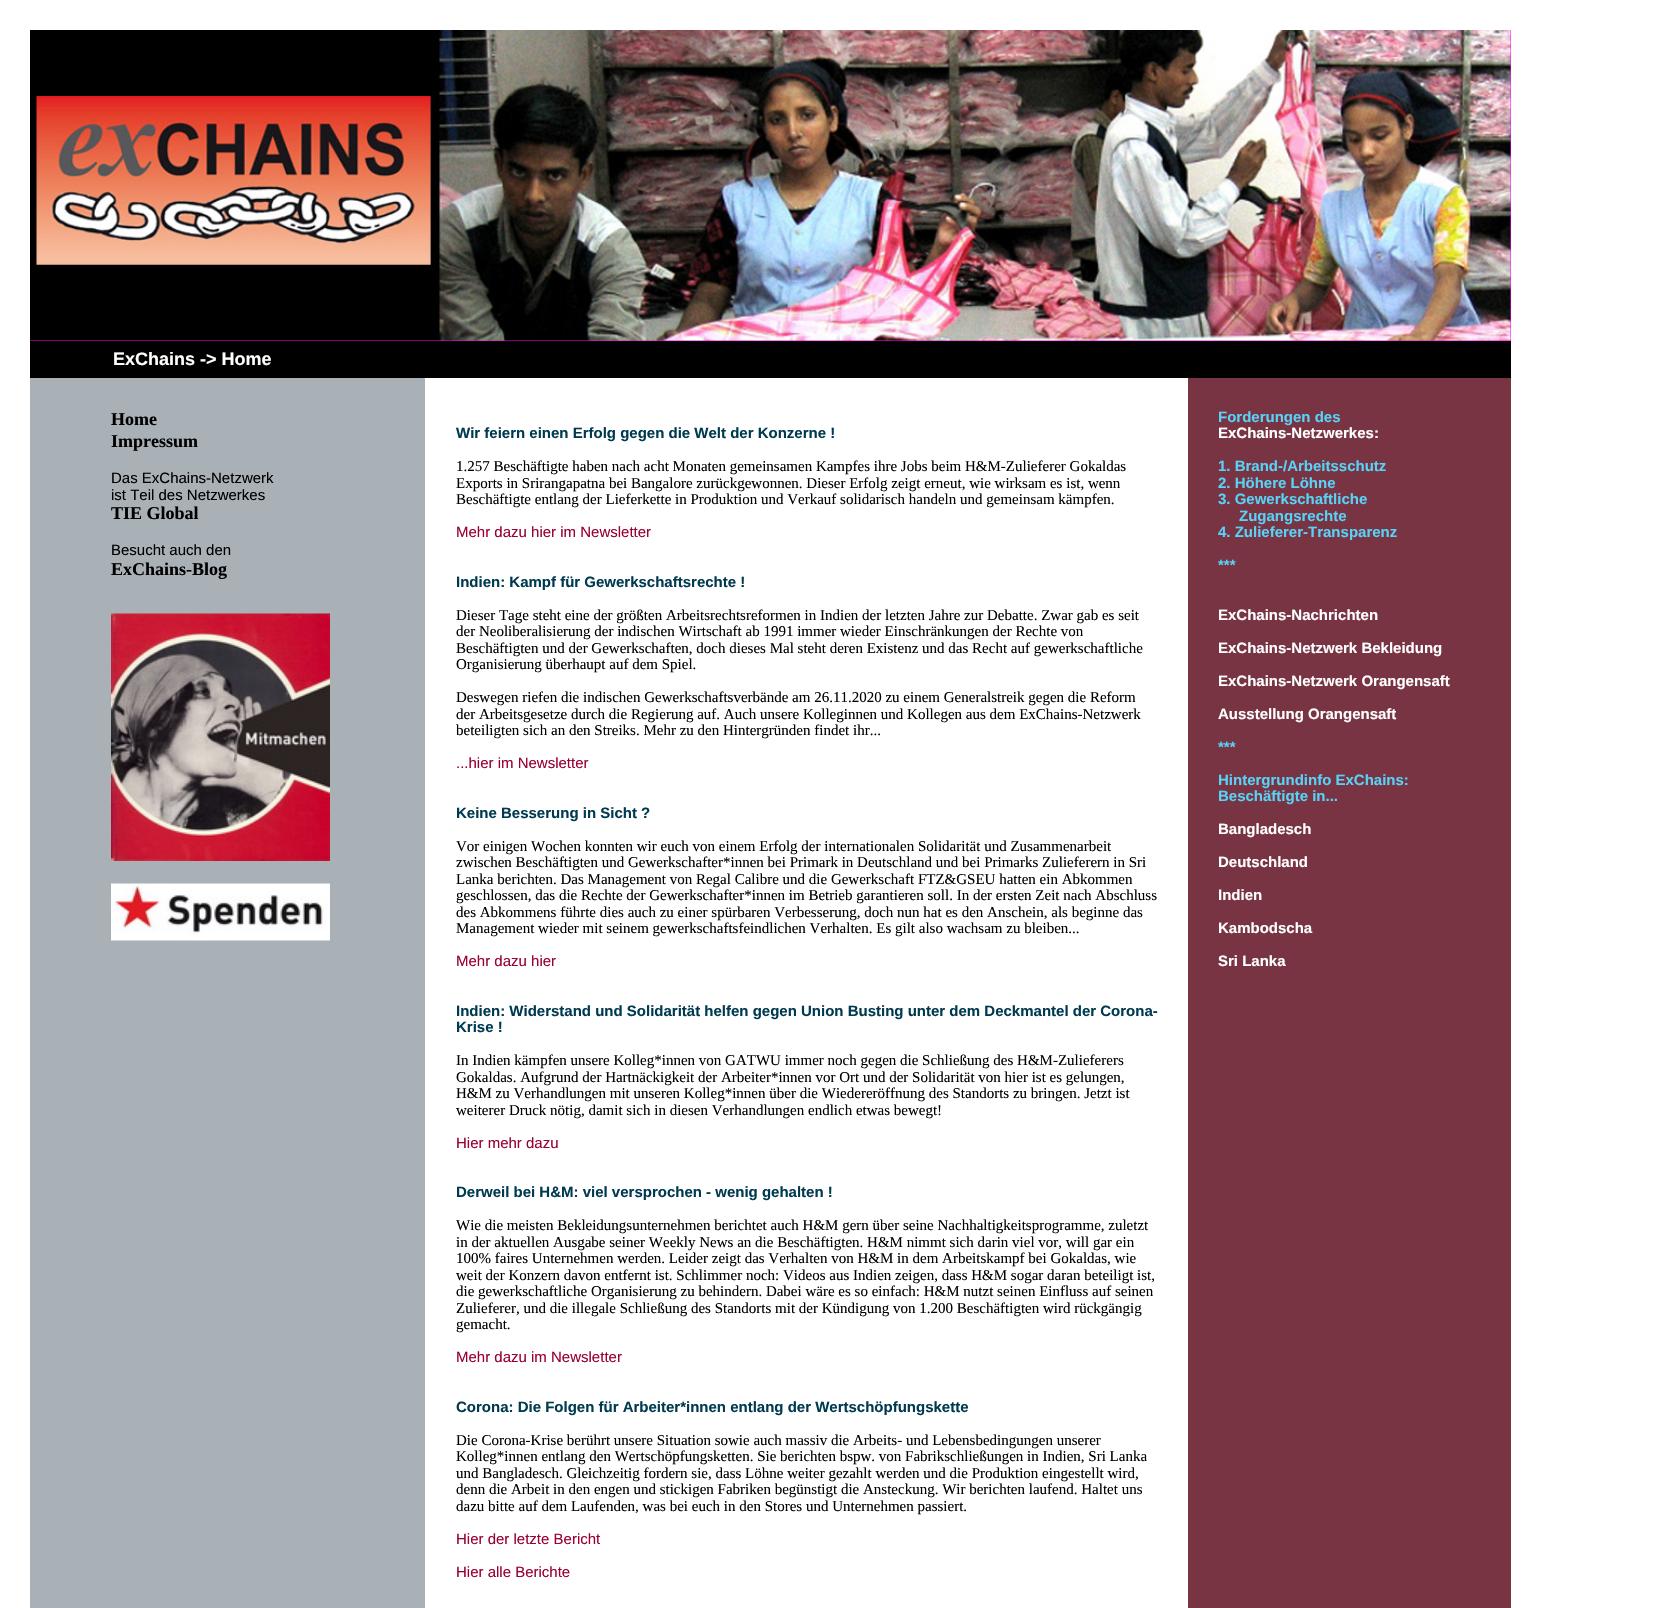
#include "include/core/SkBlurTypes.h"
#include "include/core/SkCanvas.h"
#include "include/core/SkData.h"
#include "include/core/SkFont.h"
#include "include/core/SkFontMgr.h"
#include "include/core/SkImage.h"
#include "include/core/SkMaskFilter.h"
#include "include/core/SkPaint.h"
#include "include/core/SkPathBuilder.h"
#include "include/core/SkTextBlob.h"
#include "include/effects/SkDashPathEffect.h"
#include "include/effects/SkGradientShader.h"
#include "include/utils/SkParsePath.h"

extern sk_sp<SkFontMgr> fontMgr;

void draw(SkCanvas* canvas) {
  SkPaint p;
  p.setAntiAlias(true);
  canvas->clear(SK_ColorWHITE);
  p.setColor(SkColorSetRGB(255, 0, 255));
  canvas->drawRect(SkRect::MakeLTRB(30, 30, 1511, 341), p);
  canvas->drawImageRect(SkImages::DeferredFromEncodedData(SkData::MakeFromFileName("images/1.png")), SkRect::MakeLTRB(30, 30, 1511, 341), SkSamplingOptions());
  p.setColor(SK_ColorBLACK);
  canvas->drawRect(SkRect::MakeLTRB(30, 341, 1511, 378), p);
  p.setColor(SkColorSetRGB(169, 176, 182));
  canvas->drawRect(SkRect::MakeLTRB(30, 378, 425, 1608), p);
  canvas->drawImageRect(SkImages::DeferredFromEncodedData(SkData::MakeFromFileName("images/2.png")), SkRect::MakeLTRB(111, 613, 330, 861), SkSamplingOptions());
  canvas->drawImageRect(SkImages::DeferredFromEncodedData(SkData::MakeFromFileName("images/3.png")), SkRect::MakeLTRB(111, 883, 330, 941), SkSamplingOptions());
  p.setColor(SkColorSetRGB(120, 52, 67));
  canvas->drawRect(SkRect::MakeLTRB(1188, 378, 1511, 1608), p);
  SkFont font1(fontMgr->matchFamilyStyle("Liberation Sans", SkFontStyle::Bold()), 18);
  font1.setSubpixel(true);
  p.setColor(SK_ColorWHITE);
  canvas->drawString("ExChains -> Home", 113, 365, font1, p);
  SkFont font2(fontMgr->matchFamilyStyle("Liberation Serif", SkFontStyle::Bold()), 18);
  font2.setSubpixel(true);
  p.setColor(SK_ColorBLACK);
  canvas->drawString("Home", 111, 425, font2, p);
  canvas->drawString("Impressum", 111, 447, font2, p);
  SkFont font3(fontMgr->matchFamilyStyle("Liberation Sans", SkFontStyle::Normal()), 15);
  font3.setSubpixel(true);
  canvas->drawString("Das ExChains-Netzwerk", 111, 483, font3, p);
  canvas->drawString("ist Teil des Netzwerkes", 111, 500, font3, p);
  canvas->drawString("TIE Global", 111, 519, font2, p);
  canvas->drawString("Besucht auch den", 111, 555, font3, p);
  canvas->drawString("ExChains-Blog", 111, 575, font2, p);
  SkFont font4(fontMgr->matchFamilyStyle("Liberation Sans", SkFontStyle::Bold()), 15);
  font4.setSubpixel(true);
  p.setColor(SkColorSetRGB(0, 58, 80));
  canvas->drawString("Wir feiern einen Erfolg gegen die Welt der Konzerne !", 456, 438, font4, p);
  SkFont font5(fontMgr->matchFamilyStyle("Liberation Serif", SkFontStyle::Normal()), 15);
  font5.setSubpixel(true);
  p.setColor(SK_ColorBLACK);
  canvas->drawString("1.257 Beschäftigte haben nach acht Monaten gemeinsamen Kampfes ihre Jobs beim H&M-Zulieferer Gokaldas", 456, 471, font5, p);
  canvas->drawString("Exports in Srirangapatna bei Bangalore zurückgewonnen. Dieser Erfolg zeigt erneut, wie wirksam es ist, wenn", 456, 488, font5, p);
  canvas->drawString("Beschäftigte entlang der Lieferkette in Produktion und Verkauf solidarisch handeln und gemeinsam kämpfen.", 456, 504, font5, p);
  p.setColor(SkColorSetRGB(153, 0, 51));
  canvas->drawString("Mehr dazu hier im Newsletter", 456, 537, font3, p);
  p.setColor(SkColorSetRGB(0, 58, 80));
  canvas->drawString("Indien: Kampf für Gewerkschaftsrechte !", 456, 587, font4, p);
  p.setColor(SK_ColorBLACK);
  canvas->drawString("Dieser Tage steht eine der größten Arbeitsrechtsreformen in Indien der letzten Jahre zur Debatte. Zwar gab es seit", 456, 620, font5, p);
  canvas->drawString("der Neoliberalisierung der indischen Wirtschaft ab 1991 immer wieder Einschränkungen der Rechte von", 456, 636, font5, p);
  canvas->drawString("Beschäftigten und der Gewerkschaften, doch dieses Mal steht deren Existenz und das Recht auf gewerkschaftliche", 456, 653, font5, p);
  canvas->drawString("Organisierung überhaupt auf dem Spiel.", 456, 669, font5, p);
  canvas->drawString("Deswegen riefen die indischen Gewerkschaftsverbände am 26.11.2020 zu einem Generalstreik gegen die Reform", 456, 702, font5, p);
  canvas->drawString("der Arbeitsgesetze durch die Regierung auf. Auch unsere Kolleginnen und Kollegen aus dem ExChains-Netzwerk", 456, 719, font5, p);
  canvas->drawString("beteiligten sich an den Streiks. Mehr zu den Hintergründen findet ihr...", 456, 735, font5, p);
  p.setColor(SkColorSetRGB(153, 0, 51));
  canvas->drawString("...hier im Newsletter", 456, 768, font3, p);
  p.setColor(SkColorSetRGB(0, 58, 80));
  canvas->drawString("Keine Besserung in Sicht ?", 456, 818, font4, p);
  p.setColor(SK_ColorBLACK);
  canvas->drawString("Vor einigen Wochen konnten wir euch von einem Erfolg der internationalen Solidarität und Zusammenarbeit", 456, 851, font5, p);
  canvas->drawString("zwischen Beschäftigten und Gewerkschafter*innen bei Primark in Deutschland und bei Primarks Zulieferern in Sri", 456, 867, font5, p);
  canvas->drawString("Lanka berichten. Das Management von Regal Calibre und die Gewerkschaft FTZ&GSEU hatten ein Abkommen", 456, 884, font5, p);
  canvas->drawString("geschlossen, das die Rechte der Gewerkschafter*innen im Betrieb garantieren soll. In der ersten Zeit nach Abschluss", 456, 900, font5, p);
  canvas->drawString("des Abkommens führte dies auch zu einer spürbaren Verbesserung, doch nun hat es den Anschein, als beginne das", 456, 917, font5, p);
  canvas->drawString("Management wieder mit seinem gewerkschaftsfeindlichen Verhalten. Es gilt also wachsam zu bleiben...", 456, 933, font5, p);
  p.setColor(SkColorSetRGB(153, 0, 51));
  canvas->drawString("Mehr dazu hier", 456, 966, font3, p);
  p.setColor(SkColorSetRGB(0, 58, 80));
  canvas->drawString("Indien: Widerstand und Solidarität helfen gegen Union Busting unter dem Deckmantel der Corona-", 456, 1016, font4, p);
  canvas->drawString("Krise !", 456, 1032, font4, p);
  p.setColor(SK_ColorBLACK);
  canvas->drawString("In Indien kämpfen unsere Kolleg*innen von GATWU immer noch gegen die Schließung des H&M-Zulieferers", 456, 1065, font5, p);
  canvas->drawString("Gokaldas. Aufgrund der Hartnäckigkeit der Arbeiter*innen vor Ort und der Solidarität von hier ist es gelungen,", 456, 1082, font5, p);
  canvas->drawString("H&M zu Verhandlungen mit unseren Kolleg*innen über die Wiedereröffnung des Standorts zu bringen. Jetzt ist", 456, 1098, font5, p);
  canvas->drawString("weiterer Druck nötig, damit sich in diesen Verhandlungen endlich etwas bewegt!", 456, 1115, font5, p);
  p.setColor(SkColorSetRGB(153, 0, 51));
  canvas->drawString("Hier mehr dazu", 456, 1148, font3, p);
  p.setColor(SkColorSetRGB(0, 58, 80));
  canvas->drawString("Derweil bei H&M: viel versprochen - wenig gehalten !", 456, 1197, font4, p);
  p.setColor(SK_ColorBLACK);
  canvas->drawString("Wie die meisten Bekleidungsunternehmen berichtet auch H&M gern über seine Nachhaltigkeitsprogramme, zuletzt", 456, 1230, font5, p);
  canvas->drawString("in der aktuellen Ausgabe seiner Weekly News an die Beschäftigten. H&M nimmt sich darin viel vor, will gar ein", 456, 1247, font5, p);
  canvas->drawString("100% faires Unternehmen werden. Leider zeigt das Verhalten von H&M in dem Arbeitskampf bei Gokaldas, wie", 456, 1263, font5, p);
  canvas->drawString("weit der Konzern davon entfernt ist. Schlimmer noch: Videos aus Indien zeigen, dass H&M sogar daran beteiligt ist,", 456, 1280, font5, p);
  canvas->drawString("die gewerkschaftliche Organisierung zu behindern. Dabei wäre es so einfach: H&M nutzt seinen Einfluss auf seinen", 456, 1296, font5, p);
  canvas->drawString("Zulieferer, und die illegale Schließung des Standorts mit der Kündigung von 1.200 Beschäftigten wird rückgängig", 456, 1313, font5, p);
  canvas->drawString("gemacht.", 456, 1329, font5, p);
  p.setColor(SkColorSetRGB(153, 0, 51));
  canvas->drawString("Mehr dazu im Newsletter", 456, 1362, font3, p);
  p.setColor(SkColorSetRGB(0, 58, 80));
  canvas->drawString("Corona: Die Folgen für Arbeiter*innen entlang der Wertschöpfungskette", 456, 1412, font4, p);
  p.setColor(SK_ColorBLACK);
  canvas->drawString("Die Corona-Krise berührt unsere Situation sowie auch massiv die Arbeits- und Lebensbedingungen unserer", 456, 1445, font5, p);
  canvas->drawString("Kolleg*innen entlang den Wertschöpfungsketten. Sie berichten bspw. von Fabrikschließungen in Indien, Sri Lanka", 456, 1461, font5, p);
  canvas->drawString("und Bangladesch. Gleichzeitig fordern sie, dass Löhne weiter gezahlt werden und die Produktion eingestellt wird,", 456, 1478, font5, p);
  canvas->drawString("denn die Arbeit in den engen und stickigen Fabriken begünstigt die Ansteckung. Wir berichten laufend. Haltet uns", 456, 1494, font5, p);
  canvas->drawString("dazu bitte auf dem Laufenden, was bei euch in den Stores und Unternehmen passiert.", 456, 1511, font5, p);
  p.setColor(SkColorSetRGB(153, 0, 51));
  canvas->drawString("Hier der letzte Bericht", 456, 1544, font3, p);
  canvas->drawString("Hier alle Berichte", 456, 1577, font3, p);
  p.setColor(SkColorSetRGB(88, 211, 247));
  canvas->drawString("Forderungen des", 1218, 422, font4, p);
  p.setColor(SK_ColorWHITE);
  canvas->drawString("ExChains-Netzwerkes:", 1218, 438, font4, p);
  p.setColor(SkColorSetRGB(88, 211, 247));
  canvas->drawString("1. Brand-/Arbeitsschutz", 1218, 471, font4, p);
  canvas->drawString("2. Höhere Löhne", 1218, 488, font4, p);
  canvas->drawString("3. Gewerkschaftliche", 1218, 504, font4, p);
  canvas->drawString("Zugangsrechte", 1239, 521, font4, p);
  canvas->drawString("4. Zulieferer-Transparenz", 1218, 537, font4, p);
  canvas->drawString("***", 1218, 570, font4, p);
  p.setColor(SK_ColorWHITE);
  canvas->drawString("ExChains-Nachrichten", 1218, 620, font4, p);
  canvas->drawString("ExChains-Netzwerk Bekleidung", 1218, 653, font4, p);
  canvas->drawString("ExChains-Netzwerk Orangensaft", 1218, 686, font4, p);
  canvas->drawString("Ausstellung Orangensaft", 1218, 719, font4, p);
  p.setColor(SkColorSetRGB(88, 211, 247));
  canvas->drawString("***", 1218, 752, font4, p);
  canvas->drawString("Hintergrundinfo ExChains:", 1218, 785, font4, p);
  canvas->drawString("Beschäftigte in...", 1218, 801, font4, p);
  p.setColor(SK_ColorWHITE);
  canvas->drawString("Bangladesch", 1218, 834, font4, p);
  canvas->drawString("Deutschland", 1218, 867, font4, p);
  canvas->drawString("Indien", 1218, 900, font4, p);
  canvas->drawString("Kambodscha", 1218, 933, font4, p);
  canvas->drawString("Sri Lanka", 1218, 966, font4, p);
}
